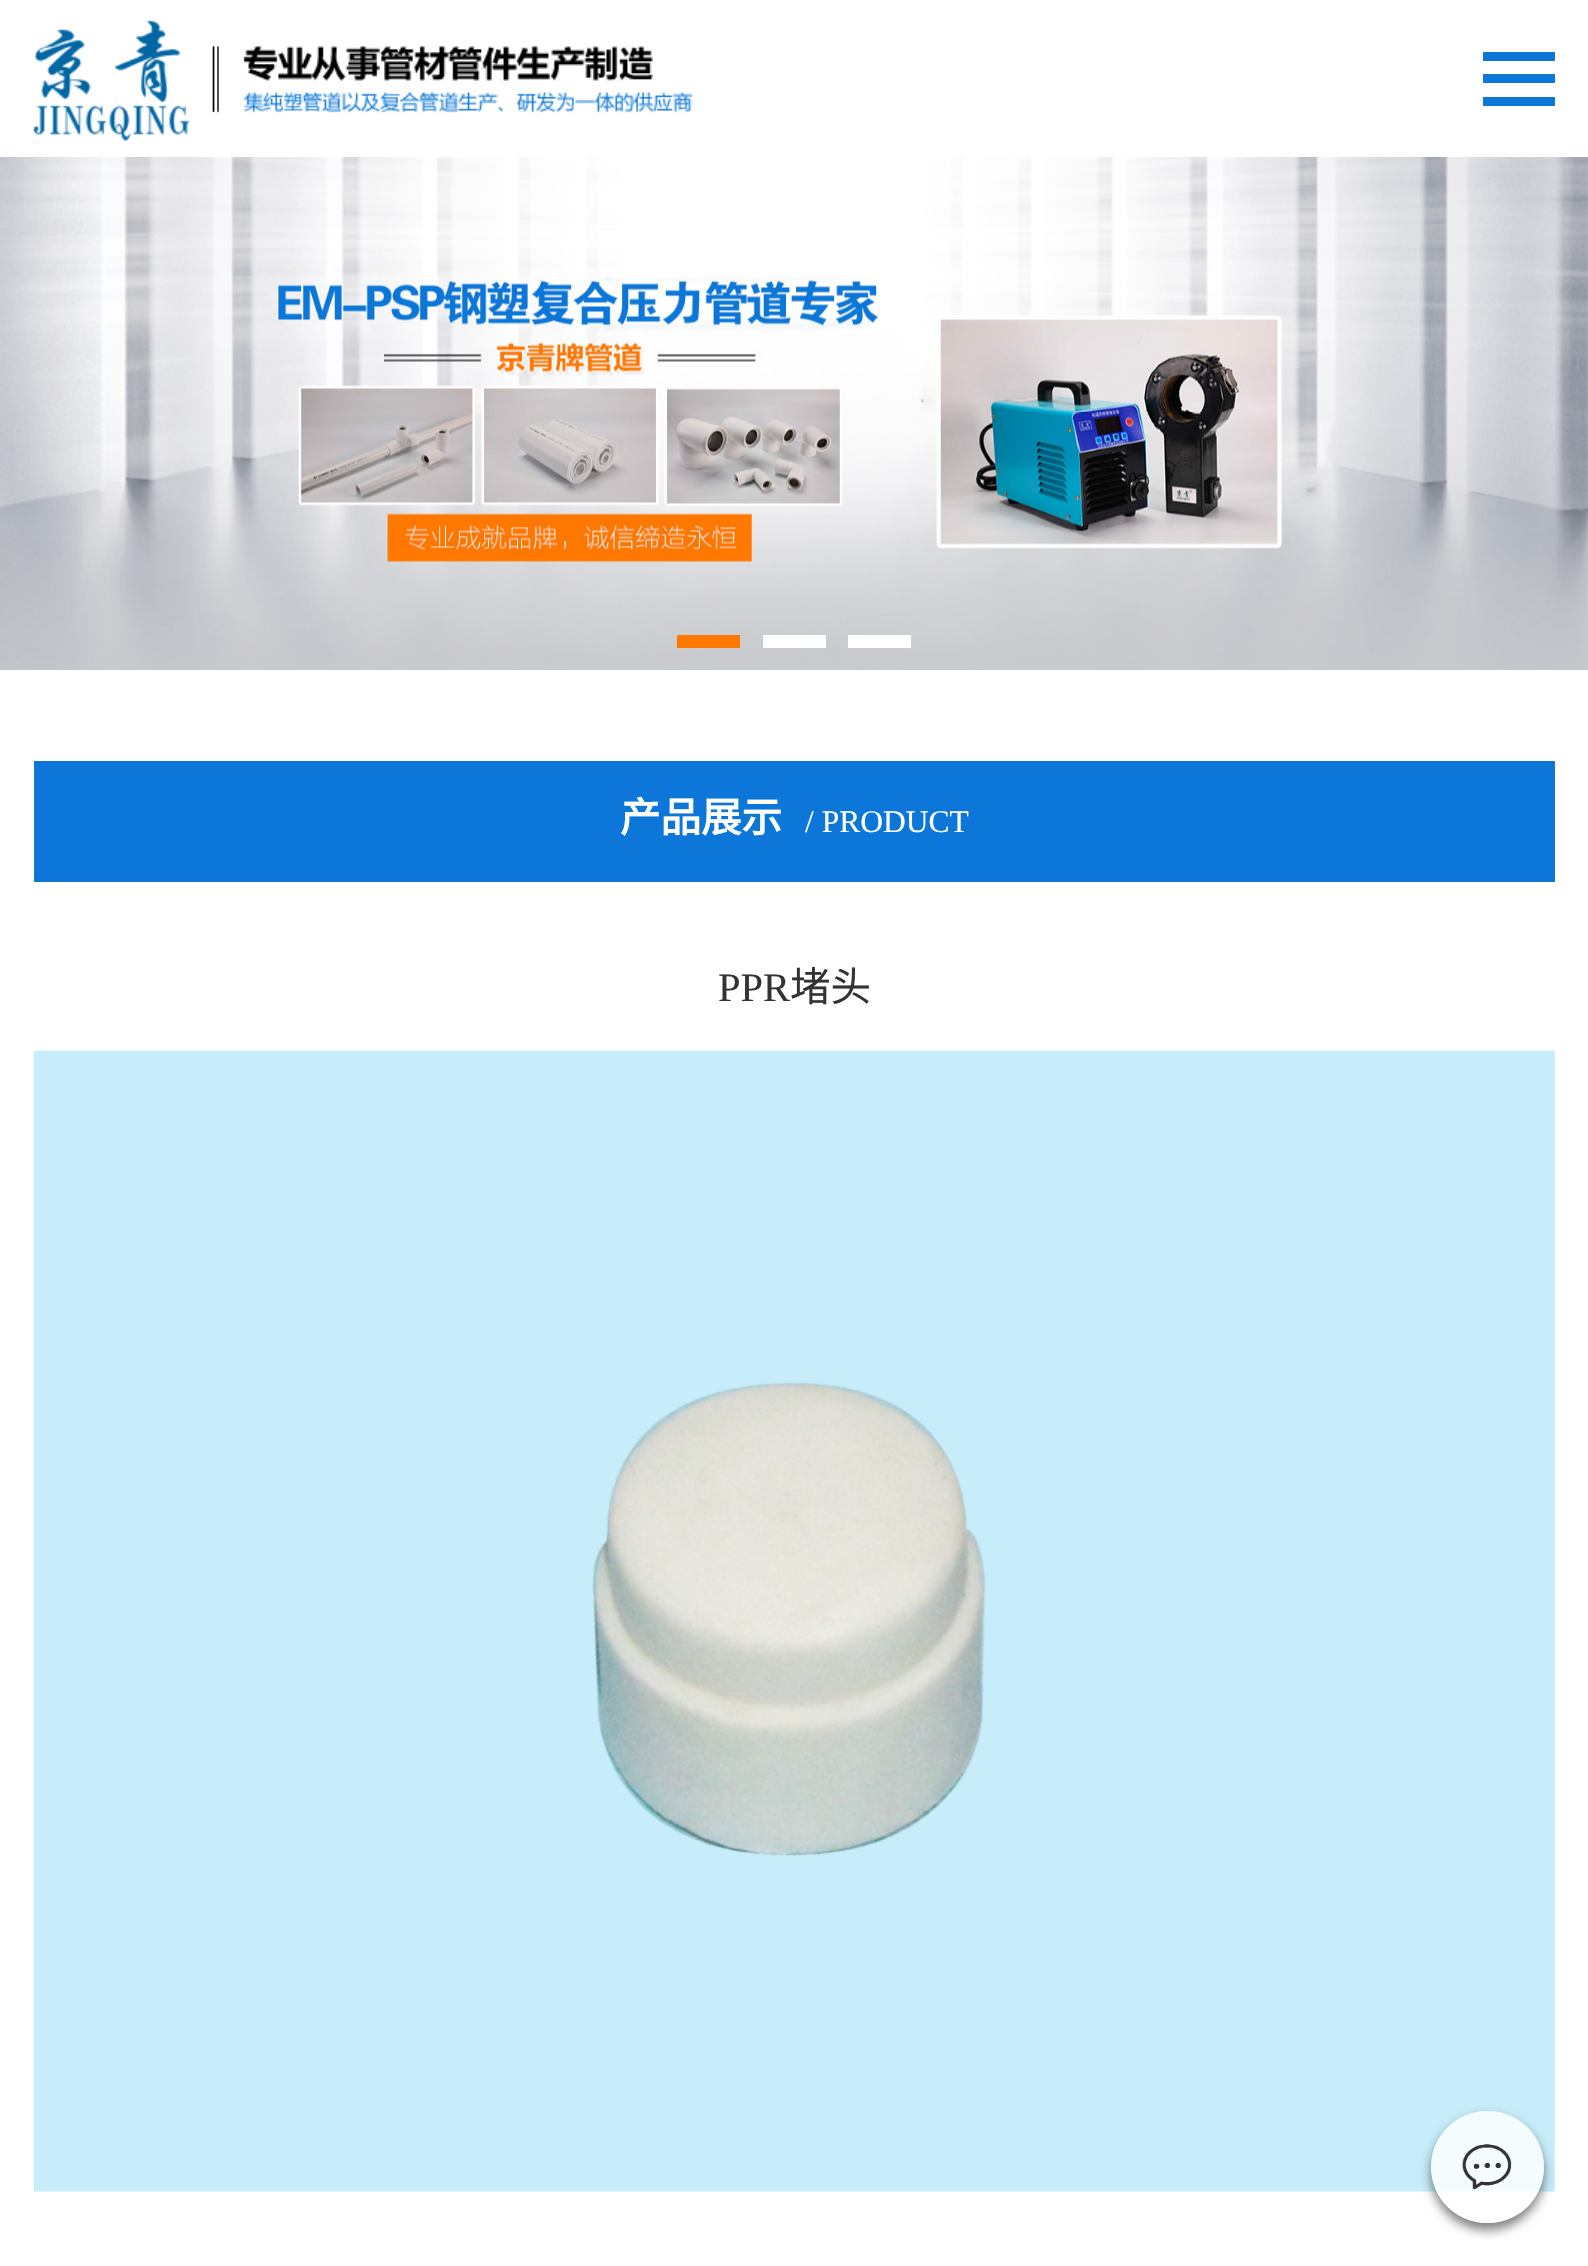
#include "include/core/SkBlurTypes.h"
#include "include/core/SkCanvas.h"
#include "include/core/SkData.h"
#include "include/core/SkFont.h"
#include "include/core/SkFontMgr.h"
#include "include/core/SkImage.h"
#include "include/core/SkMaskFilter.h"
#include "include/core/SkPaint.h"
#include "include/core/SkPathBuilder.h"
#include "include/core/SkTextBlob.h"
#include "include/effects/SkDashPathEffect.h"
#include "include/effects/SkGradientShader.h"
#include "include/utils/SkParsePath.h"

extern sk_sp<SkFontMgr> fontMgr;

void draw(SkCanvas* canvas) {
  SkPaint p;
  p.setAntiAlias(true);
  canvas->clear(SK_ColorWHITE);
  canvas->drawImageRect(SkImages::DeferredFromEncodedData(SkData::MakeFromFileName("images/1.png")), SkRect::MakeLTRB(33, 20, 693, 141), SkSamplingOptions());
  p.setColor(SkColorSetRGB(12, 119, 217));
  canvas->drawRect(SkRect::MakeLTRB(1483, 52, 1555, 61), p);
  canvas->drawRect(SkRect::MakeLTRB(1483, 74, 1555, 83), p);
  canvas->drawRect(SkRect::MakeLTRB(1483, 97, 1555, 106), p);
  canvas->drawImageRect(SkImages::DeferredFromEncodedData(SkData::MakeFromFileName("images/2.png")), SkRect::MakeLTRB(0, 157, 1588, 670), SkSamplingOptions());
  p.setColor(SkColorSetRGB(255, 120, 0));
  canvas->drawRect(SkRect::MakeLTRB(677, 635, 740, 648), p);
  p.setColor(SK_ColorWHITE);
  canvas->drawRect(SkRect::MakeLTRB(763, 635, 826, 648), p);
  canvas->drawRect(SkRect::MakeLTRB(848, 635, 911, 648), p);
  p.setColor(SkColorSetRGB(12, 119, 217));
  canvas->drawRect(SkRect::MakeLTRB(34, 761, 1555, 882), p);
  canvas->drawImageRect(SkImages::DeferredFromEncodedData(SkData::MakeFromFileName("images/3.png")), SkRect::MakeLTRB(33, 1050, 1555, 2192), SkSamplingOptions());
  canvas->save();
  canvas->clipPath(SkPathBuilder(SkPathFillType::kEvenOdd).moveTo(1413, 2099).lineTo(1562, 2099).lineTo(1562, 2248).lineTo(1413, 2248).close().moveTo(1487, 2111).lineTo(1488, 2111).cubicTo(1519, 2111, 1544, 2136, 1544, 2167).cubicTo(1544, 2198, 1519, 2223, 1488, 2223).lineTo(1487, 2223).cubicTo(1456, 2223, 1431, 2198, 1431, 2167).cubicTo(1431, 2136, 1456, 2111, 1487, 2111).close().detach(), true);
  p.setColor(SkColorSetARGB(128, 0, 0, 0));
  p.setMaskFilter(SkMaskFilter::MakeBlur(kNormal_SkBlurStyle, 5.5f));
  canvas->drawRoundRect(SkRect::MakeLTRB(1431, 2117, 1544, 2230), 56.5f, 56.5f, p);
  p.setMaskFilter(nullptr);
  canvas->restore();
  p.setColor(SkColorSetARGB(204, 255, 255, 255));
  canvas->drawRoundRect(SkRect::MakeLTRB(1431, 2111, 1544, 2223), 56, 56, p);
  canvas->drawImageRect(SkImages::DeferredFromEncodedData(SkData::MakeFromFileName("images/4.png")), SkRect::MakeLTRB(1462, 2144, 1512, 2190), SkSamplingOptions());
  SkFont font1(fontMgr->matchFamilyStyle("Noto Sans CJK SC", SkFontStyle::Bold()), 40.5f);
  font1.setSubpixel(true);
  p.setColor(SK_ColorWHITE);
  canvas->drawString("产品展示", 620, 832, font1, p);
  SkFont font2(fontMgr->matchFamilyStyle("Liberation Serif", SkFontStyle::Normal()), 31.5f);
  font2.setSubpixel(true);
  canvas->drawString("/ PRODUCT", 805, 832, font2, p);
  SkFont font3(fontMgr->matchFamilyStyle("Liberation Serif", SkFontStyle::Normal()), 40.5f);
  font3.setSubpixel(true);
  p.setColor(SkColorSetRGB(51, 51, 51));
  canvas->drawString("PPR", 718, 1001, font3, p);
  SkFont font4(fontMgr->matchFamilyStyle("Noto Sans CJK SC", SkFontStyle::Normal()), 40.5f);
  font4.setSubpixel(true);
  canvas->drawString("堵头", 790, 1001, font4, p);
}
